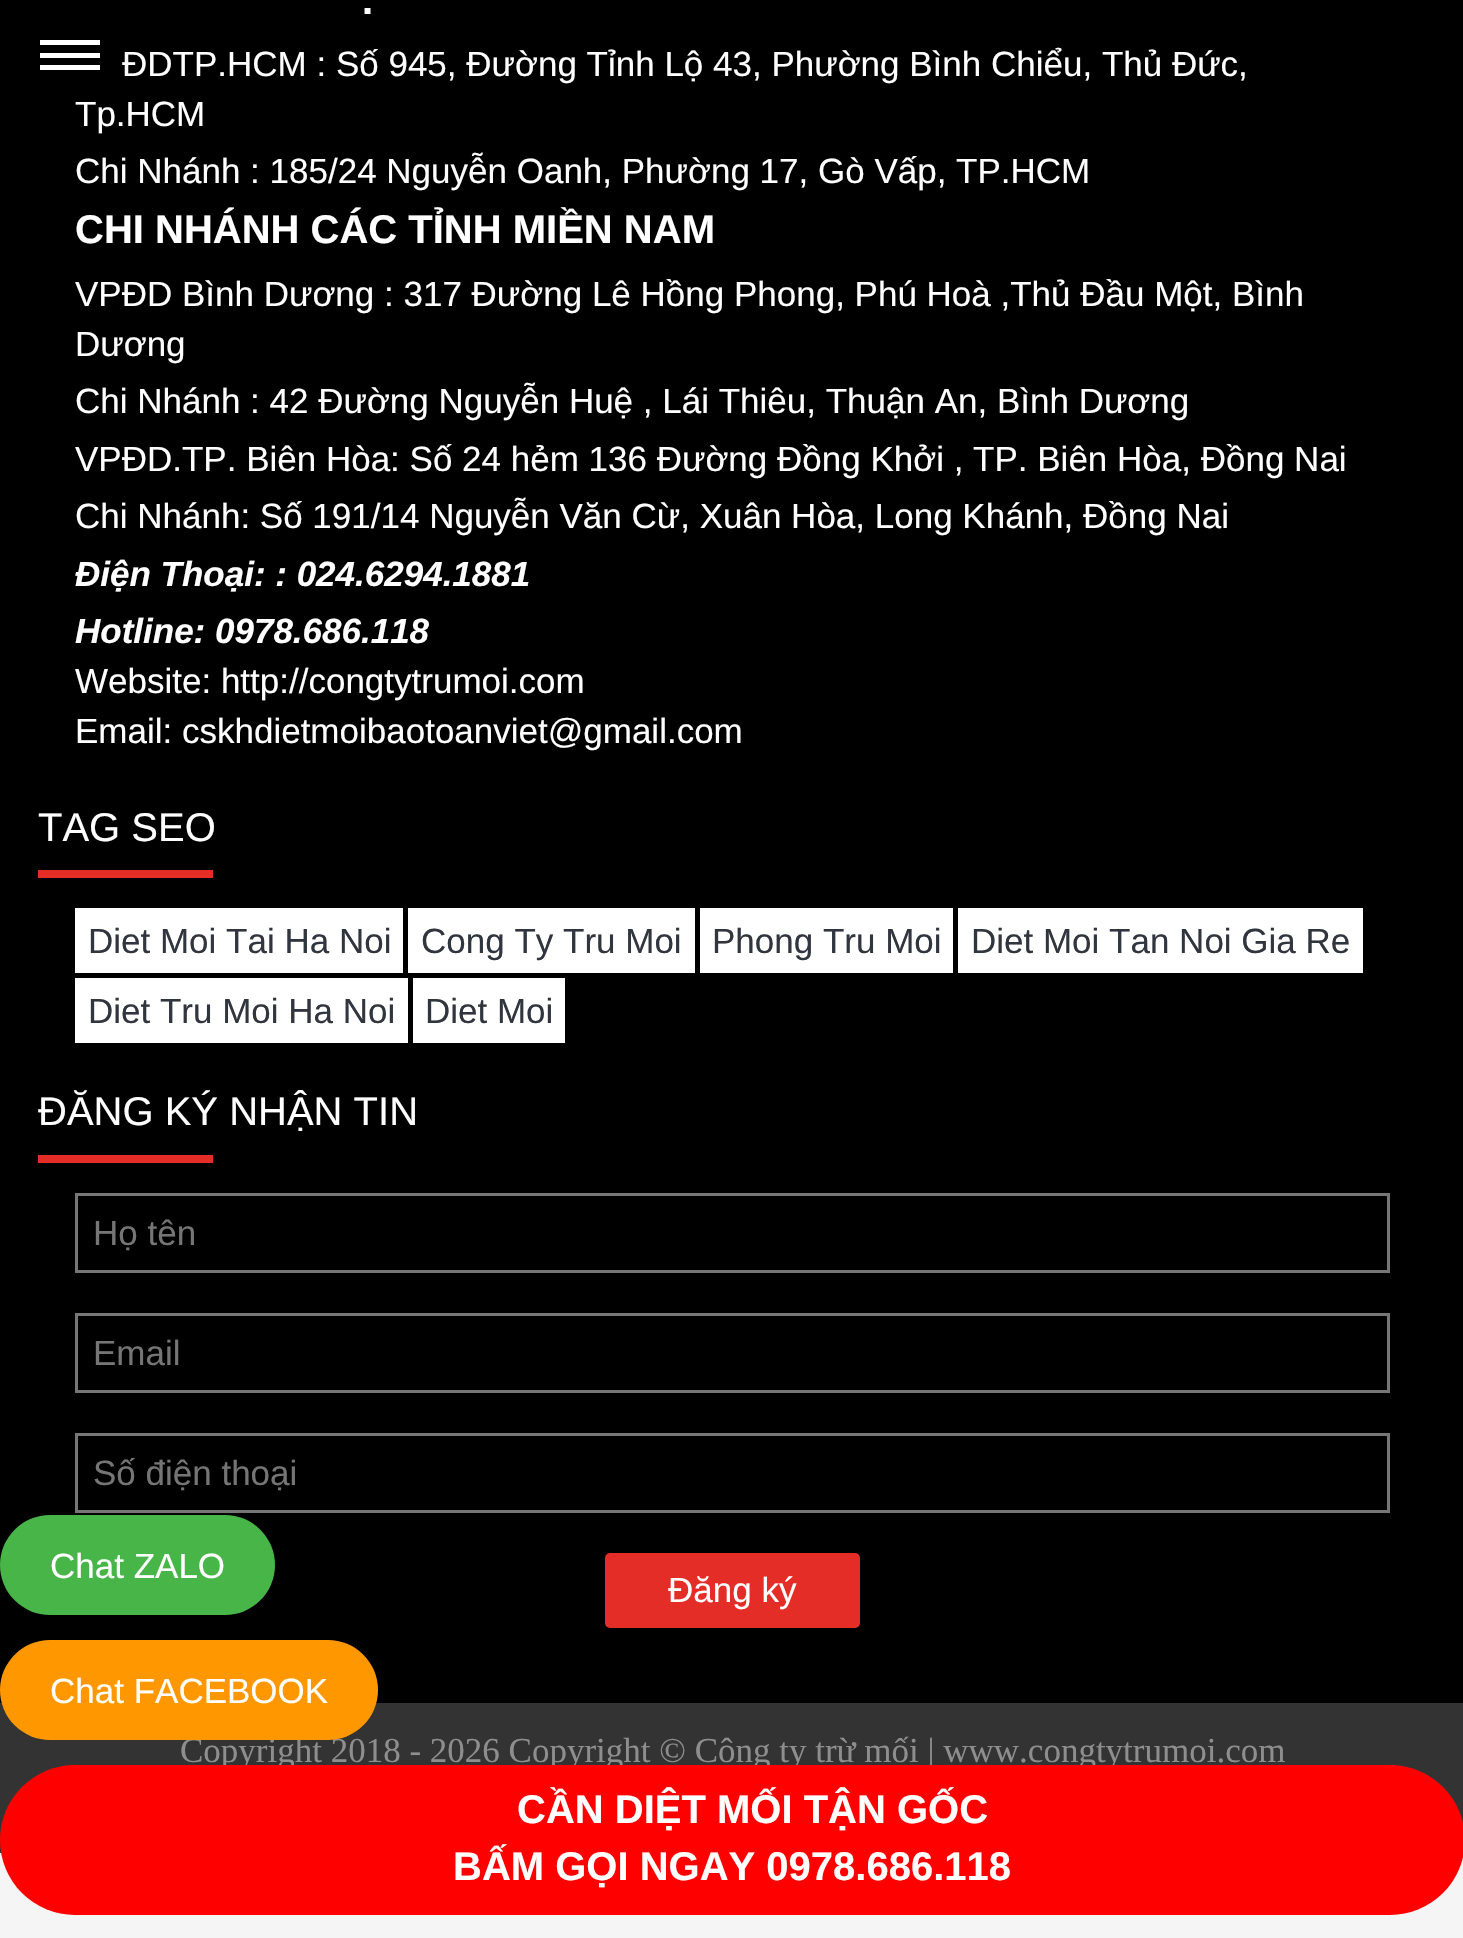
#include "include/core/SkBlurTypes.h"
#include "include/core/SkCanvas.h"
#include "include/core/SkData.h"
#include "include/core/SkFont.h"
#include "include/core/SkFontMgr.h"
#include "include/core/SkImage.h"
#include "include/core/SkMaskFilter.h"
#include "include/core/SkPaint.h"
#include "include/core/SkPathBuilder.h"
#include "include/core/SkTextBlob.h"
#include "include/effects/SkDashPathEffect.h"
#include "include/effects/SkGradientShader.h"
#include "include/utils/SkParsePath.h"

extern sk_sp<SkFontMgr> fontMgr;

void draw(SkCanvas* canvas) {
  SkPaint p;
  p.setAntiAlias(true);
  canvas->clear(SkColorSetRGB(245, 245, 245));
  p.setColor(SK_ColorBLACK);
  canvas->drawRect(SkRect::MakeLTRB(0, 0, 1463, 1703), p);
  p.setColor(SkColorSetRGB(229, 45, 40));
  canvas->drawRect(SkRect::MakeLTRB(38, 870, 213, 878), p);
  p.setColor(SK_ColorWHITE);
  canvas->drawRect(SkRect::MakeLTRB(75, 908, 403, 973), p);
  canvas->drawRect(SkRect::MakeLTRB(408, 908, 695, 973), p);
  canvas->drawRect(SkRect::MakeLTRB(700, 908, 953, 973), p);
  canvas->drawRect(SkRect::MakeLTRB(958, 908, 1363, 973), p);
  canvas->drawRect(SkRect::MakeLTRB(75, 978, 408, 1043), p);
  canvas->drawRect(SkRect::MakeLTRB(413, 978, 565, 1043), p);
  p.setColor(SkColorSetRGB(229, 45, 40));
  canvas->drawRect(SkRect::MakeLTRB(38, 1155, 213, 1163), p);
  p.setStyle(SkPaint::kStroke_Style);
  p.setStrokeWidth(3);
  p.setColor(SkColorSetRGB(118, 118, 118));
  canvas->drawRect(SkRect::MakeLTRB(76.5f, 1194.5f, 1388.5f, 1271.5f), p);
  canvas->drawRect(SkRect::MakeLTRB(76.5f, 1314.5f, 1388.5f, 1391.5f), p);
  canvas->drawRect(SkRect::MakeLTRB(76.5f, 1434.5f, 1388.5f, 1511.5f), p);
  p.setStyle(SkPaint::kFill_Style);
  p.setColor(SkColorSetRGB(229, 45, 40));
  canvas->drawRoundRect(SkRect::MakeLTRB(605, 1553, 860, 1628), 5, 5, p);
  p.setColor(SkColorSetRGB(51, 51, 51));
  canvas->drawRect(SkRect::MakeLTRB(0, 1703, 1463, 1853), p);
  p.setColor(SK_ColorWHITE);
  canvas->drawRect(SkRect::MakeLTRB(40, 40, 100, 45), p);
  canvas->drawRect(SkRect::MakeLTRB(40, 53, 100, 58), p);
  canvas->drawRect(SkRect::MakeLTRB(40, 65, 100, 70), p);
  p.setColor(SkColorSetRGB(72, 181, 72));
  canvas->drawRoundRect(SkRect::MakeLTRB(0, 1515, 275, 1615), 50, 50, p);
  SkFont font1(fontMgr->matchFamilyStyle("Liberation Sans", SkFontStyle::Bold()), 40);
  font1.setSubpixel(true);
  p.setColor(SK_ColorWHITE);
  canvas->drawString(".", 362, 14, font1, p);
  SkFont font2(fontMgr->matchFamilyStyle("Liberation Sans", SkFontStyle::Normal()), 35);
  font2.setSubpixel(true);
  canvas->drawString("ĐDTP.HCM : Số 945, Đường Tỉnh Lộ 43, Phường Bình Chiểu, Thủ Đức,", 122, 76, font2, p);
  canvas->drawString("Tp.HCM", 75, 126, font2, p);
  canvas->drawString("Chi Nhánh : 185/24 Nguyễn Oanh, Phường 17, Gò Vấp, TP.HCM", 75, 183, font2, p);
  canvas->drawString("CHI NHÁNH CÁC TỈNH MIỀN NAM", 75, 243, font1, p);
  canvas->drawString("VPĐD Bình Dương : 317 Đường Lê Hồng Phong, Phú Hoà ,Thủ Đầu Một, Bình", 75, 306, font2, p);
  canvas->drawString("Dương", 75, 356, font2, p);
  canvas->drawString("Chi Nhánh : 42 Đường Nguyễn Huệ , Lái Thiêu, Thuận An, Bình Dương", 75, 413, font2, p);
  canvas->drawString("VPĐD.TP. Biên Hòa: Số 24 hẻm 136 Đường Đồng Khởi , TP. Biên Hòa, Đồng Nai", 75, 471, font2, p);
  canvas->drawString("Chi Nhánh: Số 191/14 Nguyễn Văn Cừ, Xuân Hòa, Long Khánh, Đồng Nai", 75, 528, font2, p);
  SkFont font3(fontMgr->matchFamilyStyle("Liberation Sans", SkFontStyle::BoldItalic()), 35);
  font3.setSubpixel(true);
  canvas->drawString("Điện Thoại: : 024.6294.1881", 75, 586, font3, p);
  canvas->drawString("Hotline: 0978.686.118", 75, 643, font3, p);
  canvas->drawString("Website: http://congtytrumoi.com", 75, 693, font2, p);
  canvas->drawString("Email: cskhdietmoibaotoanviet@gmail.com", 75, 743, font2, p);
  SkFont font4(fontMgr->matchFamilyStyle("Liberation Sans", SkFontStyle::Normal()), 40);
  font4.setSubpixel(true);
  canvas->drawString("TAG SEO", 38, 841, font4, p);
  p.setColor(SkColorSetRGB(49, 53, 62));
  canvas->drawString("Diet Moi Tai Ha Noi", 88, 953, font2, p);
  canvas->drawString("Cong Ty Tru Moi", 421, 953, font2, p);
  canvas->drawString("Phong Tru Moi", 712, 953, font2, p);
  canvas->drawString("Diet Moi Tan Noi Gia Re", 971, 953, font2, p);
  canvas->drawString("Diet Tru Moi Ha Noi", 88, 1023, font2, p);
  canvas->drawString("Diet Moi", 425, 1023, font2, p);
  p.setColor(SK_ColorWHITE);
  canvas->drawString("ĐĂNG KÝ NHẬN TIN", 38, 1125, font4, p);
  p.setColor(SkColorSetRGB(117, 117, 117));
  canvas->drawString("Họ tên", 93, 1245, font2, p);
  canvas->drawString("Email", 93, 1365, font2, p);
  canvas->drawString("Số điện thoại", 93, 1485, font2, p);
  p.setColor(SK_ColorWHITE);
  canvas->drawString("Đăng ký", 668, 1602, font2, p);
  SkFont font5(fontMgr->matchFamilyStyle("Liberation Serif", SkFontStyle::Normal()), 35);
  font5.setSubpixel(true);
  p.setColor(SkColorSetRGB(142, 142, 142));
  canvas->drawString("Copyright 2018 - 2026 Copyright © Công ty trừ mối | www.congtytrumoi.com", 180, 1762, font5, p);
  p.setColor(SK_ColorWHITE);
  canvas->drawString("Chat ZALO", 50, 1578, font2, p);
  p.setColor(SkColorSetRGB(255, 152, 0));
  canvas->drawRoundRect(SkRect::MakeLTRB(0, 1640, 378, 1740), 50, 50, p);
  p.setColor(SK_ColorWHITE);
  canvas->drawString("Chat FACEBOOK", 50, 1703, font2, p);
  p.setColor(SkColorSetRGB(255, 0, 0));
  canvas->drawRoundRect(SkRect::MakeLTRB(0, 1765, 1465, 1915), 75, 75, p);
  p.setColor(SK_ColorWHITE);
  canvas->drawString("CẦN DIỆT MỐI TẬN GỐC", 517, 1823, font1, p);
  canvas->drawString("BẤM GỌI NGAY 0978.686.118", 453, 1880, font1, p);
}
